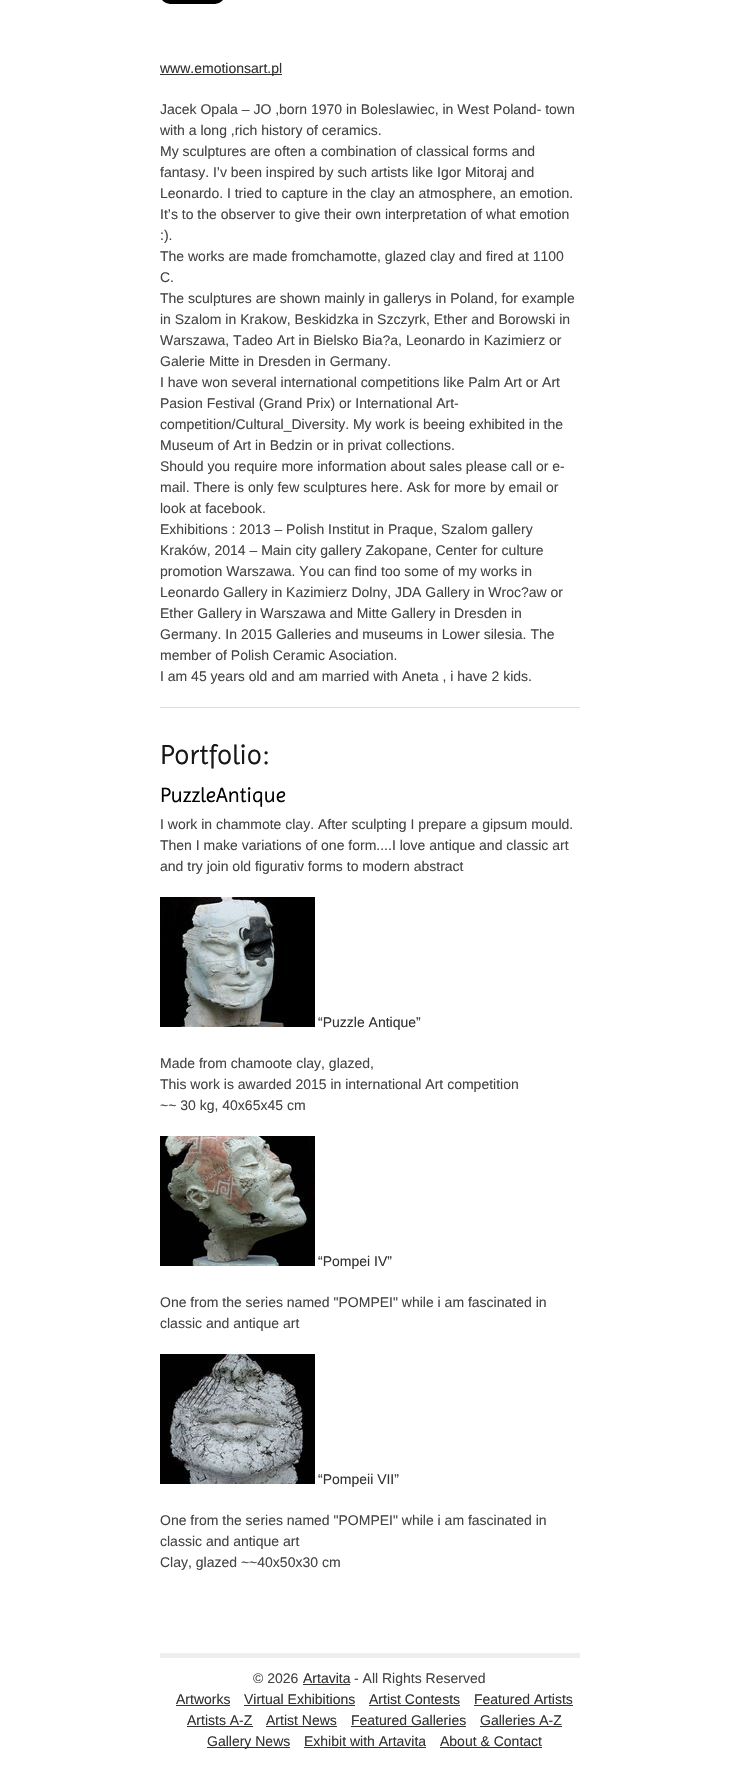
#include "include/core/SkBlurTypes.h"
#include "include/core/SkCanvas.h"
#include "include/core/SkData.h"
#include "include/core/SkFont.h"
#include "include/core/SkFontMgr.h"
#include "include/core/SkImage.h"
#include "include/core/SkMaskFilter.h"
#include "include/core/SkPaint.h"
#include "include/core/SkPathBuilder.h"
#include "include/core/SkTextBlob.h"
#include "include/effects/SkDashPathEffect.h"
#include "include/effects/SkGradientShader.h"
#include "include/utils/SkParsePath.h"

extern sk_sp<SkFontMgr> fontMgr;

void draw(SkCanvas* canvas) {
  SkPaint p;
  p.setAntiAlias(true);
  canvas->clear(SK_ColorWHITE);
  canvas->drawImageRect(SkImages::DeferredFromEncodedData(SkData::MakeFromFileName("images/1.png")), SkRect::MakeLTRB(162, 0, 223, 4), SkSamplingOptions());
  p.setColor(SkColorSetRGB(51, 51, 51));
  canvas->drawRect(SkRect::MakeLTRB(160, 74, 282, 75), p);
  p.setColor(SkColorSetRGB(221, 221, 221));
  canvas->drawRect(SkRect::MakeLTRB(160, 707, 580, 708), p);
  canvas->drawImageRect(SkImages::DeferredFromEncodedData(SkData::MakeFromFileName("images/2.png")), SkRect::MakeLTRB(160, 897, 315, 1027), SkSamplingOptions());
  canvas->drawImageRect(SkImages::DeferredFromEncodedData(SkData::MakeFromFileName("images/3.png")), SkRect::MakeLTRB(160, 1136, 315, 1266), SkSamplingOptions());
  canvas->drawImageRect(SkImages::DeferredFromEncodedData(SkData::MakeFromFileName("images/4.png")), SkRect::MakeLTRB(160, 1354, 315, 1484), SkSamplingOptions());
  p.setColor(SkColorSetRGB(238, 238, 238));
  canvas->drawRect(SkRect::MakeLTRB(160, 1653, 580, 1658), p);
  p.setColor(SkColorSetRGB(51, 51, 51));
  canvas->drawRect(SkRect::MakeLTRB(303, 1684, 350, 1685), p);
  canvas->drawRect(SkRect::MakeLTRB(176, 1705, 230, 1706), p);
  canvas->drawRect(SkRect::MakeLTRB(244, 1705, 355, 1706), p);
  canvas->drawRect(SkRect::MakeLTRB(369, 1705, 460, 1706), p);
  canvas->drawRect(SkRect::MakeLTRB(474, 1705, 573, 1706), p);
  canvas->drawRect(SkRect::MakeLTRB(187, 1726, 253, 1727), p);
  canvas->drawRect(SkRect::MakeLTRB(266, 1726, 337, 1727), p);
  canvas->drawRect(SkRect::MakeLTRB(351, 1726, 466, 1727), p);
  canvas->drawRect(SkRect::MakeLTRB(480, 1726, 562, 1727), p);
  canvas->drawRect(SkRect::MakeLTRB(207, 1747, 290, 1748), p);
  canvas->drawRect(SkRect::MakeLTRB(304, 1747, 426, 1748), p);
  canvas->drawRect(SkRect::MakeLTRB(440, 1747, 542, 1748), p);
  SkFont font1(fontMgr->matchFamilyStyle("Liberation Sans", SkFontStyle::Normal()), 14);
  font1.setSubpixel(true);
  canvas->drawString("www.emotionsart.pl", 160, 73, font1, p);
  p.setColor(SkColorSetRGB(68, 68, 68));
  canvas->drawString("Jacek Opala – JO ,born 1970 in Boleslawiec, in West Poland- town", 160, 114, font1, p);
  canvas->drawString("with a long ,rich history of ceramics.", 160, 135, font1, p);
  canvas->drawString("My sculptures are often a combination of classical forms and", 160, 156, font1, p);
  canvas->drawString("fantasy. I’v been inspired by such artists like Igor Mitoraj and", 160, 177, font1, p);
  canvas->drawString("Leonardo. I tried to capture in the clay an atmosphere, an emotion.", 160, 198, font1, p);
  canvas->drawString("It’s to the observer to give their own interpretation of what emotion", 160, 219, font1, p);
  canvas->drawString(":).", 160, 240, font1, p);
  canvas->drawString("The works are made fromchamotte, glazed clay and fired at 1100", 160, 261, font1, p);
  canvas->drawString("C.", 160, 282, font1, p);
  canvas->drawString("The sculptures are shown mainly in gallerys in Poland, for example", 160, 303, font1, p);
  canvas->drawString("in Szalom in Krakow, Beskidzka in Szczyrk, Ether and Borowski in", 160, 324, font1, p);
  canvas->drawString("Warszawa, Tadeo Art in Bielsko Bia?a, Leonardo in Kazimierz or", 160, 345, font1, p);
  canvas->drawString("Galerie Mitte in Dresden in Germany.", 160, 366, font1, p);
  canvas->drawString("I have won several international competitions like Palm Art or Art", 160, 387, font1, p);
  canvas->drawString("Pasion Festival (Grand Prix) or International Art-", 160, 408, font1, p);
  canvas->drawString("competition/Cultural_Diversity. My work is beeing exhibited in the", 160, 429, font1, p);
  canvas->drawString("Museum of Art in Bedzin or in privat collections.", 160, 450, font1, p);
  canvas->drawString("Should you require more information about sales please call or e-", 160, 471, font1, p);
  canvas->drawString("mail. There is only few sculptures here. Ask for more by email or", 160, 492, font1, p);
  canvas->drawString("look at facebook.", 160, 513, font1, p);
  canvas->drawString("Exhibitions : 2013 – Polish Institut in Praque, Szalom gallery", 160, 534, font1, p);
  canvas->drawString("Kraków, 2014 – Main city gallery Zakopane, Center for culture", 160, 555, font1, p);
  canvas->drawString("promotion Warszawa. You can find too some of my works in", 160, 576, font1, p);
  canvas->drawString("Leonardo Gallery in Kazimierz Dolny, JDA Gallery in Wroc?aw or", 160, 597, font1, p);
  canvas->drawString("Ether Gallery in Warszawa and Mitte Gallery in Dresden in", 160, 618, font1, p);
  canvas->drawString("Germany. In 2015 Galleries and museums in Lower silesia. The", 160, 639, font1, p);
  canvas->drawString("member of Polish Ceramic Asociation.", 160, 660, font1, p);
  canvas->drawString("I am 45 years old and am married with Aneta , i have 2 kids.", 160, 681, font1, p);
  SkFont font2(fontMgr->matchFamilyStyle("Imprima", SkFontStyle::Normal()), 28);
  font2.setSubpixel(true);
  p.setColor(SkColorSetRGB(24, 24, 24));
  canvas->drawString("Portfolio:", 160, 764, font2, p);
  SkFont font3(fontMgr->matchFamilyStyle("Imprima", SkFontStyle::Normal()), 21);
  font3.setSubpixel(true);
  p.setColor(SK_ColorBLACK);
  canvas->drawString("PuzzleAntique", 160, 802, font3, p);
  p.setColor(SkColorSetRGB(68, 68, 68));
  canvas->drawString("I work in chammote clay. After sculpting I prepare a gipsum mould.", 160, 829, font1, p);
  canvas->drawString("Then I make variations of one form....I love antique and classic art", 160, 850, font1, p);
  canvas->drawString("and try join old figurativ forms to modern abstract", 160, 871, font1, p);
  p.setColor(SkColorSetRGB(51, 51, 51));
  canvas->drawString("“Puzzle Antique”", 318, 1027, font1, p);
  p.setColor(SkColorSetRGB(68, 68, 68));
  canvas->drawString("Made from chamoote clay, glazed,", 160, 1068, font1, p);
  canvas->drawString("This work is awarded 2015 in international Art competition", 160, 1089, font1, p);
  canvas->drawString("~~ 30 kg, 40x65x45 cm", 160, 1110, font1, p);
  p.setColor(SkColorSetRGB(51, 51, 51));
  canvas->drawString("“Pompei IV”", 318, 1266, font1, p);
  p.setColor(SkColorSetRGB(68, 68, 68));
  canvas->drawString("One from the series named \"POMPEI\" while i am fascinated in", 160, 1307, font1, p);
  canvas->drawString("classic and antique art", 160, 1328, font1, p);
  p.setColor(SkColorSetRGB(51, 51, 51));
  canvas->drawString("“Pompeii VII”", 318, 1484, font1, p);
  p.setColor(SkColorSetRGB(68, 68, 68));
  canvas->drawString("One from the series named \"POMPEI\" while i am fascinated in", 160, 1525, font1, p);
  canvas->drawString("classic and antique art", 160, 1546, font1, p);
  canvas->drawString("Clay, glazed ~~40x50x30 cm", 160, 1567, font1, p);
  canvas->drawString("© 2026", 253, 1683, font1, p);
  p.setColor(SkColorSetRGB(51, 51, 51));
  canvas->drawString("Artavita", 303, 1683, font1, p);
  p.setColor(SkColorSetRGB(68, 68, 68));
  canvas->drawString("- All Rights Reserved", 354, 1683, font1, p);
  p.setColor(SkColorSetRGB(51, 51, 51));
  canvas->drawString("Artworks", 176, 1704, font1, p);
  canvas->drawString("Virtual Exhibitions", 244, 1704, font1, p);
  canvas->drawString("Artist Contests", 369, 1704, font1, p);
  canvas->drawString("Featured Artists", 474, 1704, font1, p);
  canvas->drawString("Artists A-Z", 187, 1725, font1, p);
  canvas->drawString("Artist News", 266, 1725, font1, p);
  canvas->drawString("Featured Galleries", 351, 1725, font1, p);
  canvas->drawString("Galleries A-Z", 480, 1725, font1, p);
  canvas->drawString("Gallery News", 207, 1746, font1, p);
  canvas->drawString("Exhibit with Artavita", 304, 1746, font1, p);
  canvas->drawString("About & Contact", 440, 1746, font1, p);
}
